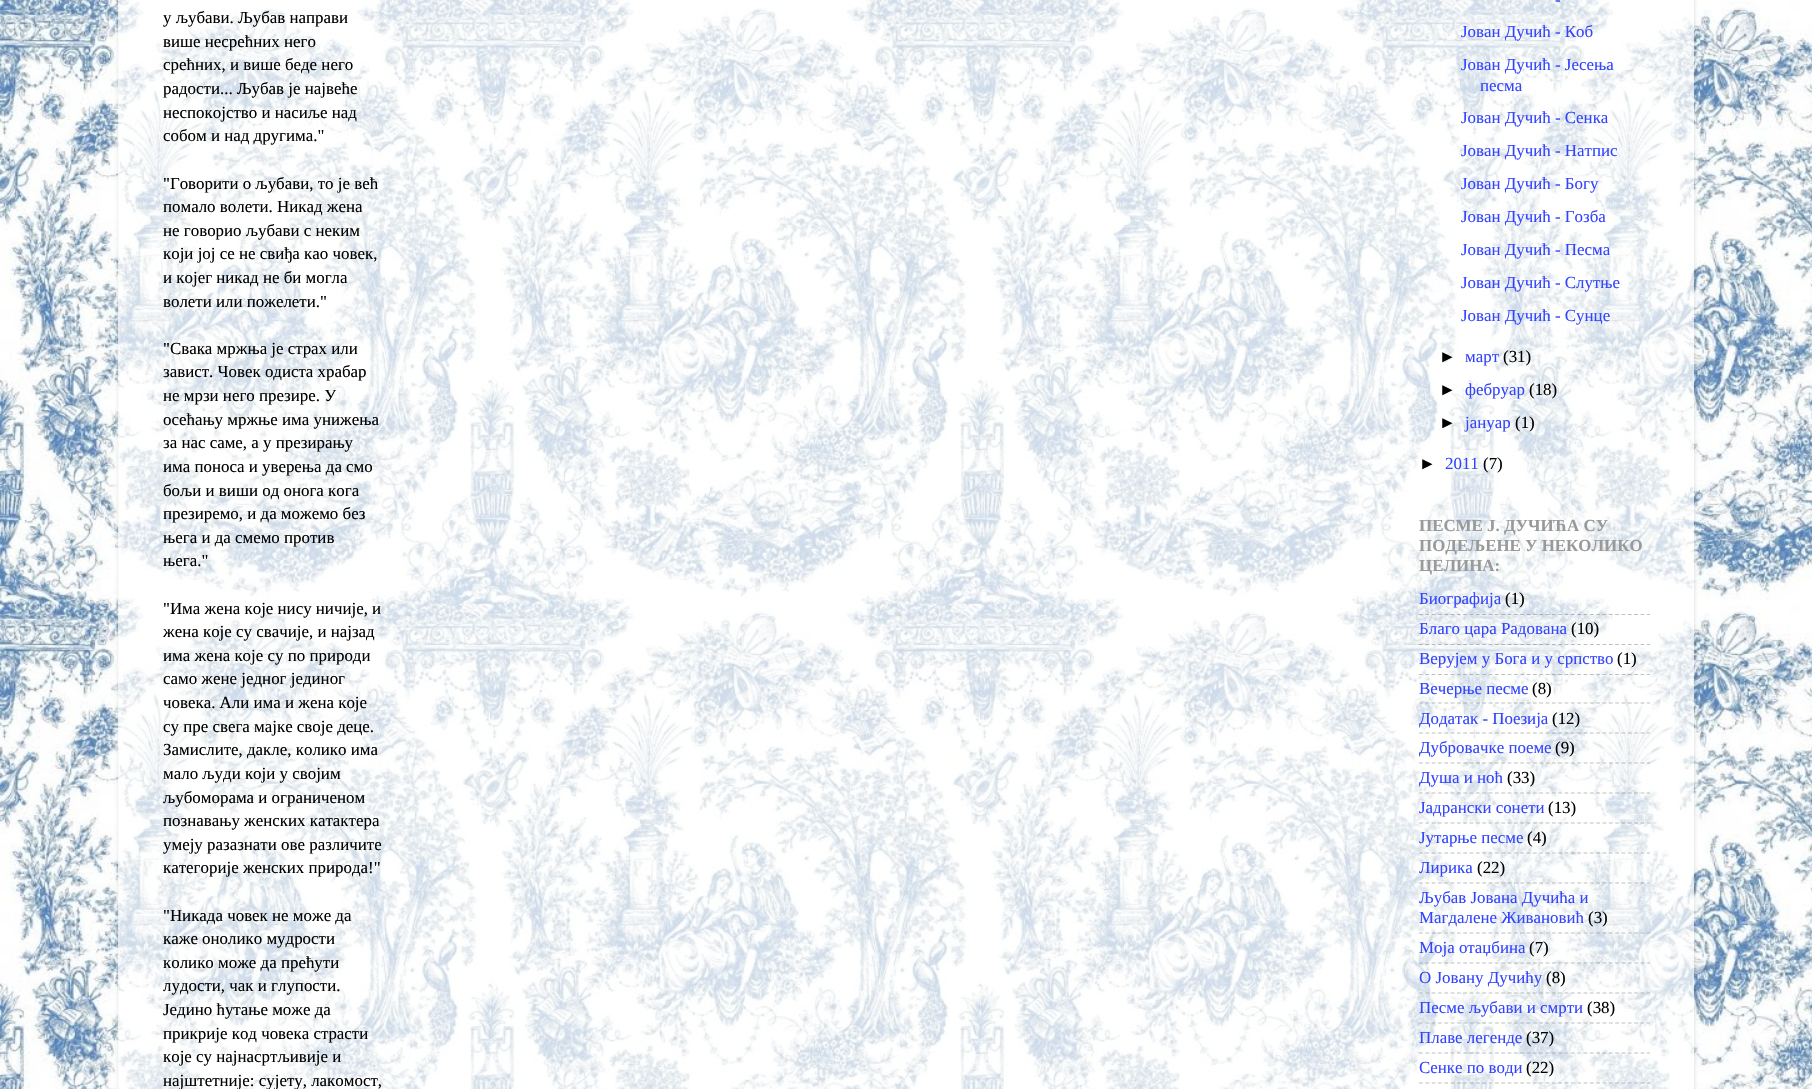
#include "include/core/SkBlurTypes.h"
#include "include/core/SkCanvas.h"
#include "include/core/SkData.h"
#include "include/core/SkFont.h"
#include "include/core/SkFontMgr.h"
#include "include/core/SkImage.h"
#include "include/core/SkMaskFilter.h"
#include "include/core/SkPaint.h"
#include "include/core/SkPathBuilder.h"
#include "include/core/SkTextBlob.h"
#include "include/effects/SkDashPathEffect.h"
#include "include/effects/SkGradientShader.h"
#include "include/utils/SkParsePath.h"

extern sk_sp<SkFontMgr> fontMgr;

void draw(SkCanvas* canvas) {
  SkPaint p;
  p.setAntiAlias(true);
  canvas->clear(SK_ColorWHITE);
  canvas->drawImageRect(SkImages::DeferredFromEncodedData(SkData::MakeFromFileName("images/1.png")), SkRect::MakeLTRB(0, 0, 1812, 1089), SkSamplingOptions());
  canvas->save();
  canvas->clipPath(SkPathBuilder(SkPathFillType::kEvenOdd).moveTo(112, 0).lineTo(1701, 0).lineTo(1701, 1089).lineTo(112, 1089).close().moveTo(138, -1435).lineTo(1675, -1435).cubicTo(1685.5f, -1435, 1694, -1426.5f, 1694, -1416).lineTo(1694, 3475).cubicTo(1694, 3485.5f, 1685.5f, 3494, 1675, 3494).lineTo(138, 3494).cubicTo(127.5f, 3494, 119, 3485.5f, 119, 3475).lineTo(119, -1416).cubicTo(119, -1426.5f, 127.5f, -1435, 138, -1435).close().detach(), true);
  p.setColor(SkColorSetARGB(38, 0, 0, 0));
  p.setMaskFilter(SkMaskFilter::MakeBlur(kNormal_SkBlurStyle, 2));
  canvas->drawRoundRect(SkRect::MakeLTRB(119, -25, 1694, 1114), 19, 19, p);
  p.setMaskFilter(nullptr);
  canvas->restore();
  p.setColor(SkColorSetARGB(179, 255, 255, 255));
  canvas->drawRect(SkRect::MakeLTRB(118, 0, 1694, 1089), p);
  p.setStyle(SkPaint::kStroke_Style);
  p.setStrokeWidth(1.2f);
  p.setColor(SkColorSetARGB(128, 128, 128, 128));
  p.setPathEffect(SkDashPathEffect::Make({{3.75f, 2.58f}}, 0));
  canvas->drawPath(SkPathBuilder().moveTo(1419, 614.5f).lineTo(1650, 614.5f).detach(), p);
  p.setPathEffect(nullptr);
  p.setPathEffect(SkDashPathEffect::Make({{3.75f, 2.58f}}, 0));
  canvas->drawPath(SkPathBuilder().moveTo(1419, 644.5f).lineTo(1650, 644.5f).detach(), p);
  p.setPathEffect(nullptr);
  p.setPathEffect(SkDashPathEffect::Make({{3.75f, 2.58f}}, 0));
  canvas->drawPath(SkPathBuilder().moveTo(1419, 674.5f).lineTo(1650, 674.5f).detach(), p);
  p.setPathEffect(nullptr);
  p.setPathEffect(SkDashPathEffect::Make({{3.75f, 2.58f}}, 0));
  canvas->drawPath(SkPathBuilder().moveTo(1419, 703).lineTo(1650, 703).detach(), p);
  p.setPathEffect(nullptr);
  p.setPathEffect(SkDashPathEffect::Make({{3.75f, 2.58f}}, 0));
  canvas->drawPath(SkPathBuilder().moveTo(1419, 733).lineTo(1650, 733).detach(), p);
  p.setPathEffect(nullptr);
  p.setPathEffect(SkDashPathEffect::Make({{3.75f, 2.58f}}, 0));
  canvas->drawPath(SkPathBuilder().moveTo(1419, 763).lineTo(1650, 763).detach(), p);
  p.setPathEffect(nullptr);
  p.setPathEffect(SkDashPathEffect::Make({{3.75f, 2.58f}}, 0));
  canvas->drawPath(SkPathBuilder().moveTo(1419, 793).lineTo(1650, 793).detach(), p);
  p.setPathEffect(nullptr);
  p.setPathEffect(SkDashPathEffect::Make({{3.75f, 2.58f}}, 0));
  canvas->drawPath(SkPathBuilder().moveTo(1419, 823).lineTo(1650, 823).detach(), p);
  p.setPathEffect(nullptr);
  p.setPathEffect(SkDashPathEffect::Make({{3.75f, 2.58f}}, 0));
  canvas->drawPath(SkPathBuilder().moveTo(1419, 853).lineTo(1650, 853).detach(), p);
  p.setPathEffect(nullptr);
  p.setPathEffect(SkDashPathEffect::Make({{3.75f, 2.58f}}, 0));
  canvas->drawPath(SkPathBuilder().moveTo(1419, 883).lineTo(1650, 883).detach(), p);
  p.setPathEffect(nullptr);
  p.setPathEffect(SkDashPathEffect::Make({{3.75f, 2.58f}}, 0));
  canvas->drawPath(SkPathBuilder().moveTo(1419, 933).lineTo(1650, 933).detach(), p);
  p.setPathEffect(nullptr);
  p.setPathEffect(SkDashPathEffect::Make({{3.75f, 2.58f}}, 0));
  canvas->drawPath(SkPathBuilder().moveTo(1419, 963).lineTo(1650, 963).detach(), p);
  p.setPathEffect(nullptr);
  p.setPathEffect(SkDashPathEffect::Make({{3.75f, 2.58f}}, 0));
  canvas->drawPath(SkPathBuilder().moveTo(1419, 993).lineTo(1650, 993).detach(), p);
  p.setPathEffect(nullptr);
  p.setPathEffect(SkDashPathEffect::Make({{3.75f, 2.58f}}, 0));
  canvas->drawPath(SkPathBuilder().moveTo(1419, 1023).lineTo(1650, 1023).detach(), p);
  p.setPathEffect(nullptr);
  p.setPathEffect(SkDashPathEffect::Make({{3.75f, 2.58f}}, 0));
  canvas->drawPath(SkPathBuilder().moveTo(1419, 1053).lineTo(1650, 1053).detach(), p);
  p.setPathEffect(nullptr);
  p.setPathEffect(SkDashPathEffect::Make({{3.75f, 2.58f}}, 0));
  canvas->drawPath(SkPathBuilder().moveTo(1419, 1083).lineTo(1650, 1083).detach(), p);
  p.setPathEffect(nullptr);
  SkFont font1(fontMgr->matchFamilyStyle("Liberation Serif", SkFontStyle::Normal()), 16.9f);
  font1.setSubpixel(true);
  p.setStyle(SkPaint::kFill_Style);
  p.setColor(SK_ColorBLACK);
  canvas->drawString("у љубави. Љубав направи", 163, 23, font1, p);
  canvas->drawString("више несрећних него", 163, 47, font1, p);
  canvas->drawString("срећних, и више беде него", 163, 70, font1, p);
  canvas->drawString("радости... Љубав је највеће", 163, 94, font1, p);
  canvas->drawString("неспокојство и насиље над", 163, 118, font1, p);
  canvas->drawString("собом и над другима.\"", 163, 141, font1, p);
  canvas->drawString("\"Говорити о љубави, то је већ", 163, 189, font1, p);
  canvas->drawString("помало волети. Никад жена", 163, 212, font1, p);
  canvas->drawString("не говорио љубави с неким", 163, 236, font1, p);
  canvas->drawString("који јој се не свиђа као човек,", 163, 259, font1, p);
  canvas->drawString("и којег никад не би могла", 163, 283, font1, p);
  canvas->drawString("волети или пожелети.\"", 163, 307, font1, p);
  canvas->drawString("\"Свака мржња је страх или", 163, 354, font1, p);
  canvas->drawString("завист. Човек одиста храбар", 163, 377, font1, p);
  canvas->drawString("не мрзи него презире. У", 163, 401, font1, p);
  canvas->drawString("осећању мржње има унижења", 163, 425, font1, p);
  canvas->drawString("за нас саме, а у презирању", 163, 448, font1, p);
  canvas->drawString("има поноса и уверења да смо", 163, 472, font1, p);
  canvas->drawString("бољи и виши од онога кога", 163, 496, font1, p);
  canvas->drawString("презиремо, и да можемо без", 163, 519, font1, p);
  canvas->drawString("њега и да смемо против", 163, 543, font1, p);
  canvas->drawString("њега.\"", 163, 566, font1, p);
  canvas->drawString("\"Има жена које нису ничије, и", 163, 614, font1, p);
  canvas->drawString("жена које су свачије, и најзад", 163, 637, font1, p);
  canvas->drawString("има жена које су по природи", 163, 661, font1, p);
  canvas->drawString("само жене једног јединог", 163, 684, font1, p);
  canvas->drawString("човека. Али има и жена које", 163, 708, font1, p);
  canvas->drawString("су пре свега мајке своје деце.", 163, 732, font1, p);
  canvas->drawString("Замислите, дакле, колико има", 163, 755, font1, p);
  canvas->drawString("мало људи који у својим", 163, 779, font1, p);
  canvas->drawString("љубоморама и ограниченом", 163, 803, font1, p);
  canvas->drawString("познавању женских катактера", 163, 826, font1, p);
  canvas->drawString("умеју разазнати ове различите", 163, 850, font1, p);
  canvas->drawString("категорије женских природа!\"", 163, 873, font1, p);
  canvas->drawString("\"Никада човек не може да", 163, 921, font1, p);
  canvas->drawString("каже онолико мудрости", 163, 944, font1, p);
  canvas->drawString("колико може да прећути", 163, 968, font1, p);
  canvas->drawString("лудости, чак и глупости.", 163, 991, font1, p);
  canvas->drawString("Једино ћутање може да", 163, 1015, font1, p);
  canvas->drawString("прикрије код човека страсти", 163, 1039, font1, p);
  canvas->drawString("које су најнасртљивије и", 163, 1062, font1, p);
  canvas->drawString("најштетније: сујету, лакомост,", 163, 1086, font1, p);
  p.setColor(SkColorSetRGB(50, 68, 255));
  canvas->drawString("-", 1555, 5, font1, p);
  canvas->drawString("Јован Дучић - Коб", 1461, 37, font1, p);
  canvas->drawString("Јован Дучић - Јесења", 1461, 70, font1, p);
  canvas->drawString("песма", 1480, 91, font1, p);
  canvas->drawString("Јован Дучић - Сенка", 1461, 123, font1, p);
  canvas->drawString("Јован Дучић - Натпис", 1461, 156, font1, p);
  canvas->drawString("Јован Дучић - Богу", 1461, 189, font1, p);
  canvas->drawString("Јован Дучић - Гозба", 1461, 222, font1, p);
  canvas->drawString("Јован Дучић - Песма", 1461, 255, font1, p);
  canvas->drawString("Јован Дучић - Слутње", 1461, 288, font1, p);
  canvas->drawString("Јован Дучић - Сунце", 1461, 321, font1, p);
  SkFont font2(fontMgr->matchFamilyStyle("Liberation Sans", SkFontStyle::Normal()), 16.9f);
  font2.setSubpixel(true);
  p.setColor(SK_ColorBLACK);
  canvas->drawString("►", 1439, 362, font2, p);
  p.setColor(SkColorSetRGB(50, 68, 255));
  canvas->drawString("март", 1465, 362, font1, p);
  p.setColor(SK_ColorBLACK);
  canvas->drawString("(31)", 1503, 362, font1, p);
  canvas->drawString("►", 1439, 395, font2, p);
  p.setColor(SkColorSetRGB(50, 68, 255));
  canvas->drawString("фебруар", 1465, 395, font1, p);
  p.setColor(SK_ColorBLACK);
  canvas->drawString("(18)", 1529, 395, font1, p);
  canvas->drawString("►", 1439, 428, font2, p);
  p.setColor(SkColorSetRGB(50, 68, 255));
  canvas->drawString("јануар", 1465, 428, font1, p);
  p.setColor(SK_ColorBLACK);
  canvas->drawString("(1)", 1515, 428, font1, p);
  canvas->drawString("►", 1419, 469, font2, p);
  p.setColor(SkColorSetRGB(50, 68, 255));
  canvas->drawString("2011", 1445, 469, font1, p);
  p.setColor(SK_ColorBLACK);
  canvas->drawString("(7)", 1483, 469, font1, p);
  SkFont font3(fontMgr->matchFamilyStyle("Liberation Serif", SkFontStyle::Bold()), 16.9f);
  font3.setSubpixel(true);
  p.setColor(SkColorSetRGB(153, 153, 153));
  canvas->drawString("ПЕСМЕ Ј. ДУЧИЋА СУ", 1419, 531, font3, p);
  canvas->drawString("ПОДЕЉЕНЕ У НЕКОЛИКО", 1419, 551, font3, p);
  canvas->drawString("ЦЕЛИНА:", 1419, 571, font3, p);
  p.setColor(SkColorSetRGB(50, 68, 255));
  canvas->drawString("Биографија", 1419, 604, font1, p);
  p.setColor(SK_ColorBLACK);
  canvas->drawString("(1)", 1505, 604, font1, p);
  p.setColor(SkColorSetRGB(50, 68, 255));
  canvas->drawString("Благо цара Радована", 1419, 634, font1, p);
  p.setColor(SK_ColorBLACK);
  canvas->drawString("(10)", 1571, 634, font1, p);
  p.setColor(SkColorSetRGB(50, 68, 255));
  canvas->drawString("Верујем у Бога и у српство", 1419, 664, font1, p);
  p.setColor(SK_ColorBLACK);
  canvas->drawString("(1)", 1617, 664, font1, p);
  p.setColor(SkColorSetRGB(50, 68, 255));
  canvas->drawString("Вечерње песме", 1419, 694, font1, p);
  p.setColor(SK_ColorBLACK);
  canvas->drawString("(8)", 1532, 694, font1, p);
  p.setColor(SkColorSetRGB(50, 68, 255));
  canvas->drawString("Додатак - Поезија", 1419, 724, font1, p);
  p.setColor(SK_ColorBLACK);
  canvas->drawString("(12)", 1552, 724, font1, p);
  p.setColor(SkColorSetRGB(50, 68, 255));
  canvas->drawString("Дубровачке поеме", 1419, 753, font1, p);
  p.setColor(SK_ColorBLACK);
  canvas->drawString("(9)", 1555, 753, font1, p);
  p.setColor(SkColorSetRGB(50, 68, 255));
  canvas->drawString("Душа и ноћ", 1419, 783, font1, p);
  p.setColor(SK_ColorBLACK);
  canvas->drawString("(33)", 1507, 783, font1, p);
  p.setColor(SkColorSetRGB(50, 68, 255));
  canvas->drawString("Јадрански сонети", 1419, 813, font1, p);
  p.setColor(SK_ColorBLACK);
  canvas->drawString("(13)", 1548, 813, font1, p);
  p.setColor(SkColorSetRGB(50, 68, 255));
  canvas->drawString("Јутарње песме", 1419, 843, font1, p);
  p.setColor(SK_ColorBLACK);
  canvas->drawString("(4)", 1527, 843, font1, p);
  p.setColor(SkColorSetRGB(50, 68, 255));
  canvas->drawString("Лирика", 1419, 873, font1, p);
  p.setColor(SK_ColorBLACK);
  canvas->drawString("(22)", 1477, 873, font1, p);
  p.setColor(SkColorSetRGB(50, 68, 255));
  canvas->drawString("Љубав Јована Дучића и", 1419, 903, font1, p);
  canvas->drawString("Магдалене Живановић", 1419, 923, font1, p);
  p.setColor(SK_ColorBLACK);
  canvas->drawString("(3)", 1588, 923, font1, p);
  p.setColor(SkColorSetRGB(50, 68, 255));
  canvas->drawString("Моја отаџбина", 1419, 953, font1, p);
  p.setColor(SK_ColorBLACK);
  canvas->drawString("(7)", 1529, 953, font1, p);
  p.setColor(SkColorSetRGB(50, 68, 255));
  canvas->drawString("О Јовану Дучићу", 1419, 983, font1, p);
  p.setColor(SK_ColorBLACK);
  canvas->drawString("(8)", 1546, 983, font1, p);
  p.setColor(SkColorSetRGB(50, 68, 255));
  canvas->drawString("Песме љубави и смрти", 1419, 1013, font1, p);
  p.setColor(SK_ColorBLACK);
  canvas->drawString("(38)", 1587, 1013, font1, p);
  p.setColor(SkColorSetRGB(50, 68, 255));
  canvas->drawString("Плаве легенде", 1419, 1043, font1, p);
  p.setColor(SK_ColorBLACK);
  canvas->drawString("(37)", 1526, 1043, font1, p);
  p.setColor(SkColorSetRGB(50, 68, 255));
  canvas->drawString("Сенке по води", 1419, 1073, font1, p);
  p.setColor(SK_ColorBLACK);
  canvas->drawString("(22)", 1526, 1073, font1, p);
}
